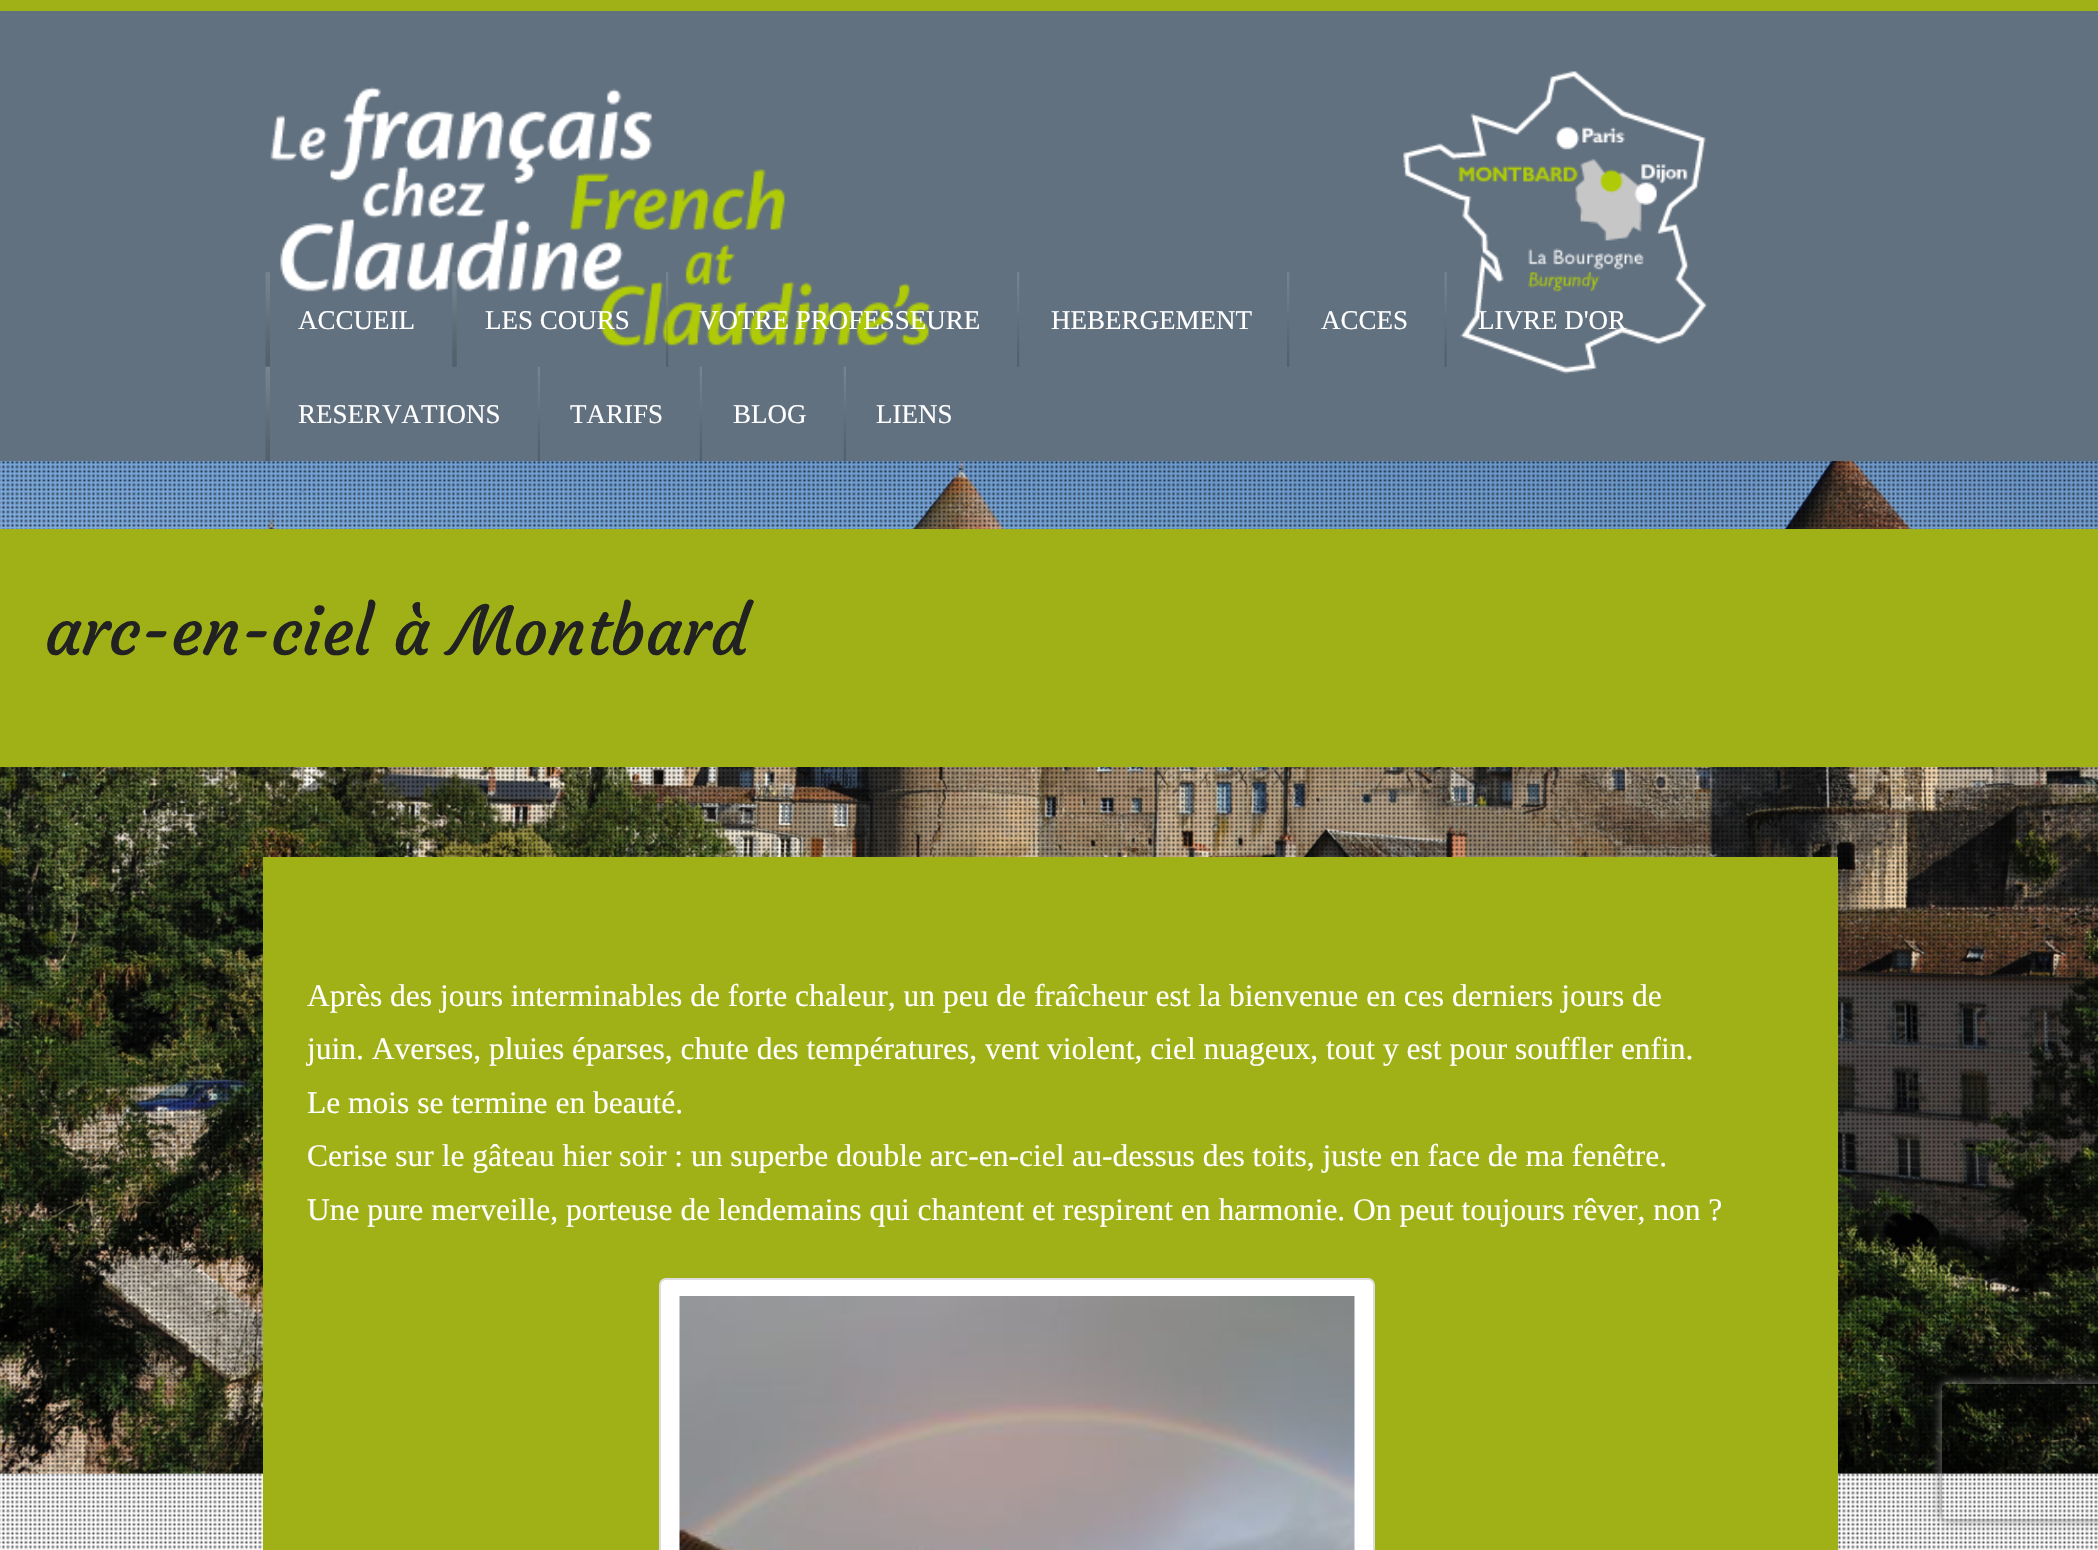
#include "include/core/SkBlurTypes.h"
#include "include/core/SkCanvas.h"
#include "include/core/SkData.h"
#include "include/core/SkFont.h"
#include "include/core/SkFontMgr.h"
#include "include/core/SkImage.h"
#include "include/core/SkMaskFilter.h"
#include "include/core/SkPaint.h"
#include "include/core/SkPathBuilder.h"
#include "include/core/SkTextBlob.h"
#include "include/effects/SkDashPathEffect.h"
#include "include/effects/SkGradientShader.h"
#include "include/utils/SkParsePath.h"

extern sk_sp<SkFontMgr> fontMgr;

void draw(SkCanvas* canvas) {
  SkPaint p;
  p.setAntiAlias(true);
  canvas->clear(SK_ColorWHITE);
  p.setColor(SkColorSetRGB(159, 177, 23));
  canvas->drawRect(SkRect::MakeLTRB(0, 0, 2098, 11), p);
  p.setColor(SkColorSetRGB(98, 113, 128));
  canvas->drawRect(SkRect::MakeLTRB(0, 11, 2098, 461), p);
  canvas->drawImageRect(SkImages::DeferredFromEncodedData(SkData::MakeFromFileName("images/1.png")), SkRect::MakeLTRB(270, 86, 931, 347), SkSamplingOptions());
  canvas->drawImageRect(SkImages::DeferredFromEncodedData(SkData::MakeFromFileName("images/2.png")), SkRect::MakeLTRB(1403, 71, 1708, 374), SkSamplingOptions());
  canvas->drawImageRect(SkImages::DeferredFromEncodedData(SkData::MakeFromFileName("images/3.png")), SkRect::MakeLTRB(265, 272, 270, 367), SkSamplingOptions());
  canvas->drawImageRect(SkImages::DeferredFromEncodedData(SkData::MakeFromFileName("images/4.png")), SkRect::MakeLTRB(452, 272, 457, 367), SkSamplingOptions());
  canvas->drawImageRect(SkImages::DeferredFromEncodedData(SkData::MakeFromFileName("images/5.png")), SkRect::MakeLTRB(666, 272, 669, 367), SkSamplingOptions());
  canvas->drawImageRect(SkImages::DeferredFromEncodedData(SkData::MakeFromFileName("images/6.png")), SkRect::MakeLTRB(1017, 272, 1020, 367), SkSamplingOptions());
  canvas->drawImageRect(SkImages::DeferredFromEncodedData(SkData::MakeFromFileName("images/6.png")), SkRect::MakeLTRB(1287, 272, 1290, 367), SkSamplingOptions());
  canvas->drawImageRect(SkImages::DeferredFromEncodedData(SkData::MakeFromFileName("images/7.png")), SkRect::MakeLTRB(1444, 272, 1447, 367), SkSamplingOptions());
  canvas->drawImageRect(SkImages::DeferredFromEncodedData(SkData::MakeFromFileName("images/12.png")), SkRect::MakeLTRB(0, 461, 2098, 1474), SkSamplingOptions());
  canvas->drawImageRect(SkImages::DeferredFromEncodedData(SkData::MakeFromFileName("images/13.png")), SkRect::MakeLTRB(0, 461, 2098, 1550), SkSamplingOptions());
  canvas->drawImageRect(SkImages::DeferredFromEncodedData(SkData::MakeFromFileName("images/8.png")), SkRect::MakeLTRB(265, 366, 270, 462), SkSamplingOptions());
  canvas->drawImageRect(SkImages::DeferredFromEncodedData(SkData::MakeFromFileName("images/9.png")), SkRect::MakeLTRB(537, 366, 540, 462), SkSamplingOptions());
  canvas->drawImageRect(SkImages::DeferredFromEncodedData(SkData::MakeFromFileName("images/10.png")), SkRect::MakeLTRB(699, 366, 702, 462), SkSamplingOptions());
  canvas->drawImageRect(SkImages::DeferredFromEncodedData(SkData::MakeFromFileName("images/11.png")), SkRect::MakeLTRB(843, 366, 846, 462), SkSamplingOptions());
  p.setColor(SkColorSetRGB(159, 177, 23));
  canvas->drawRect(SkRect::MakeLTRB(0, 529, 2098, 767), p);
  canvas->drawRect(SkRect::MakeLTRB(263, 857, 1838, 1550), p);
  p.setColor(SK_ColorWHITE);
  canvas->drawRoundRect(SkRect::MakeLTRB(660, 1279, 1374, 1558), 6, 6, p);
  p.setStyle(SkPaint::kStroke_Style);
  p.setStrokeWidth(2);
  p.setColor(SkColorSetRGB(221, 221, 221));
  canvas->drawRoundRect(SkRect::MakeLTRB(660, 1279, 1374, 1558), 6, 6, p);
  canvas->drawImageRect(SkImages::DeferredFromEncodedData(SkData::MakeFromFileName("images/14.png")), SkRect::MakeLTRB(679, 1296, 1355, 1550), SkSamplingOptions());
  canvas->save();
  canvas->clipPath(SkPathBuilder(SkPathFillType::kEvenOdd).moveTo(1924, 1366).lineTo(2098, 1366).lineTo(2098, 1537).lineTo(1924, 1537).close().moveTo(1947, 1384).lineTo(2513, 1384).cubicTo(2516, 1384, 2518, 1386, 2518, 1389).lineTo(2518, 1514).cubicTo(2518, 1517, 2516, 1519, 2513, 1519).lineTo(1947, 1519).cubicTo(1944, 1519, 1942, 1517, 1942, 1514).lineTo(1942, 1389).cubicTo(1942, 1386, 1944, 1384, 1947, 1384).close().detach(), true);
  p.setStyle(SkPaint::kFill_Style);
  p.setColor(SkColorSetRGB(128, 128, 128));
  p.setMaskFilter(SkMaskFilter::MakeBlur(kNormal_SkBlurStyle, 5.5f));
  canvas->drawRoundRect(SkRect::MakeLTRB(1942, 1384, 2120, 1519), 5, 5, p);
  p.setMaskFilter(nullptr);
  canvas->restore();
  SkFont font1(fontMgr->matchFamilyStyle("Liberation Serif", SkFontStyle::Normal()), 27);
  font1.setSubpixel(true);
  p.setColor(SK_ColorWHITE);
  canvas->drawString("ACCUEIL", 298, 329, font1, p);
  canvas->drawString("LES COURS", 485, 329, font1, p);
  canvas->drawString("VOTRE PROFESSEURE", 699, 329, font1, p);
  canvas->drawString("HEBERGEMENT", 1051, 329, font1, p);
  canvas->drawString("ACCES", 1321, 329, font1, p);
  canvas->drawString("LIVRE D'OR", 1478, 329, font1, p);
  canvas->drawString("RESERVATIONS", 298, 423, font1, p);
  canvas->drawString("TARIFS", 570, 423, font1, p);
  canvas->drawString("BLOG", 733, 423, font1, p);
  canvas->drawString("LIENS", 876, 423, font1, p);
  SkFont font2(fontMgr->matchFamilyStyle("Courgette", SkFontStyle::Normal()), 67.5f);
  font2.setSubpixel(true);
  p.setColor(SkColorSetRGB(34, 34, 34));
  canvas->drawString("arc-en-ciel à Montbard", 45, 655, font2, p);
  SkFont font3(fontMgr->matchFamilyStyle("Liberation Serif", SkFontStyle::Normal()), 31.5f);
  font3.setSubpixel(true);
  p.setColor(SK_ColorWHITE);
  canvas->drawString("Après des jours interminables de forte chaleur, un peu de fraîcheur est la bienvenue en ces derniers jours de", 307, 1006, font3, p);
  canvas->drawString("juin. Averses, pluies éparses, chute des températures, vent violent, ciel nuageux, tout y est pour souffler enfin.", 307, 1059, font3, p);
  canvas->drawString("Le mois se termine en beauté.", 307, 1113, font3, p);
  canvas->drawString("Cerise sur le gâteau hier soir : un superbe double arc-en-ciel au-dessus des toits, juste en face de ma fenêtre.", 307, 1166, font3, p);
  canvas->drawString("Une pure merveille, porteuse de lendemains qui chantent et respirent en harmonie. On peut toujours rêver, non ?", 307, 1220, font3, p);
}
